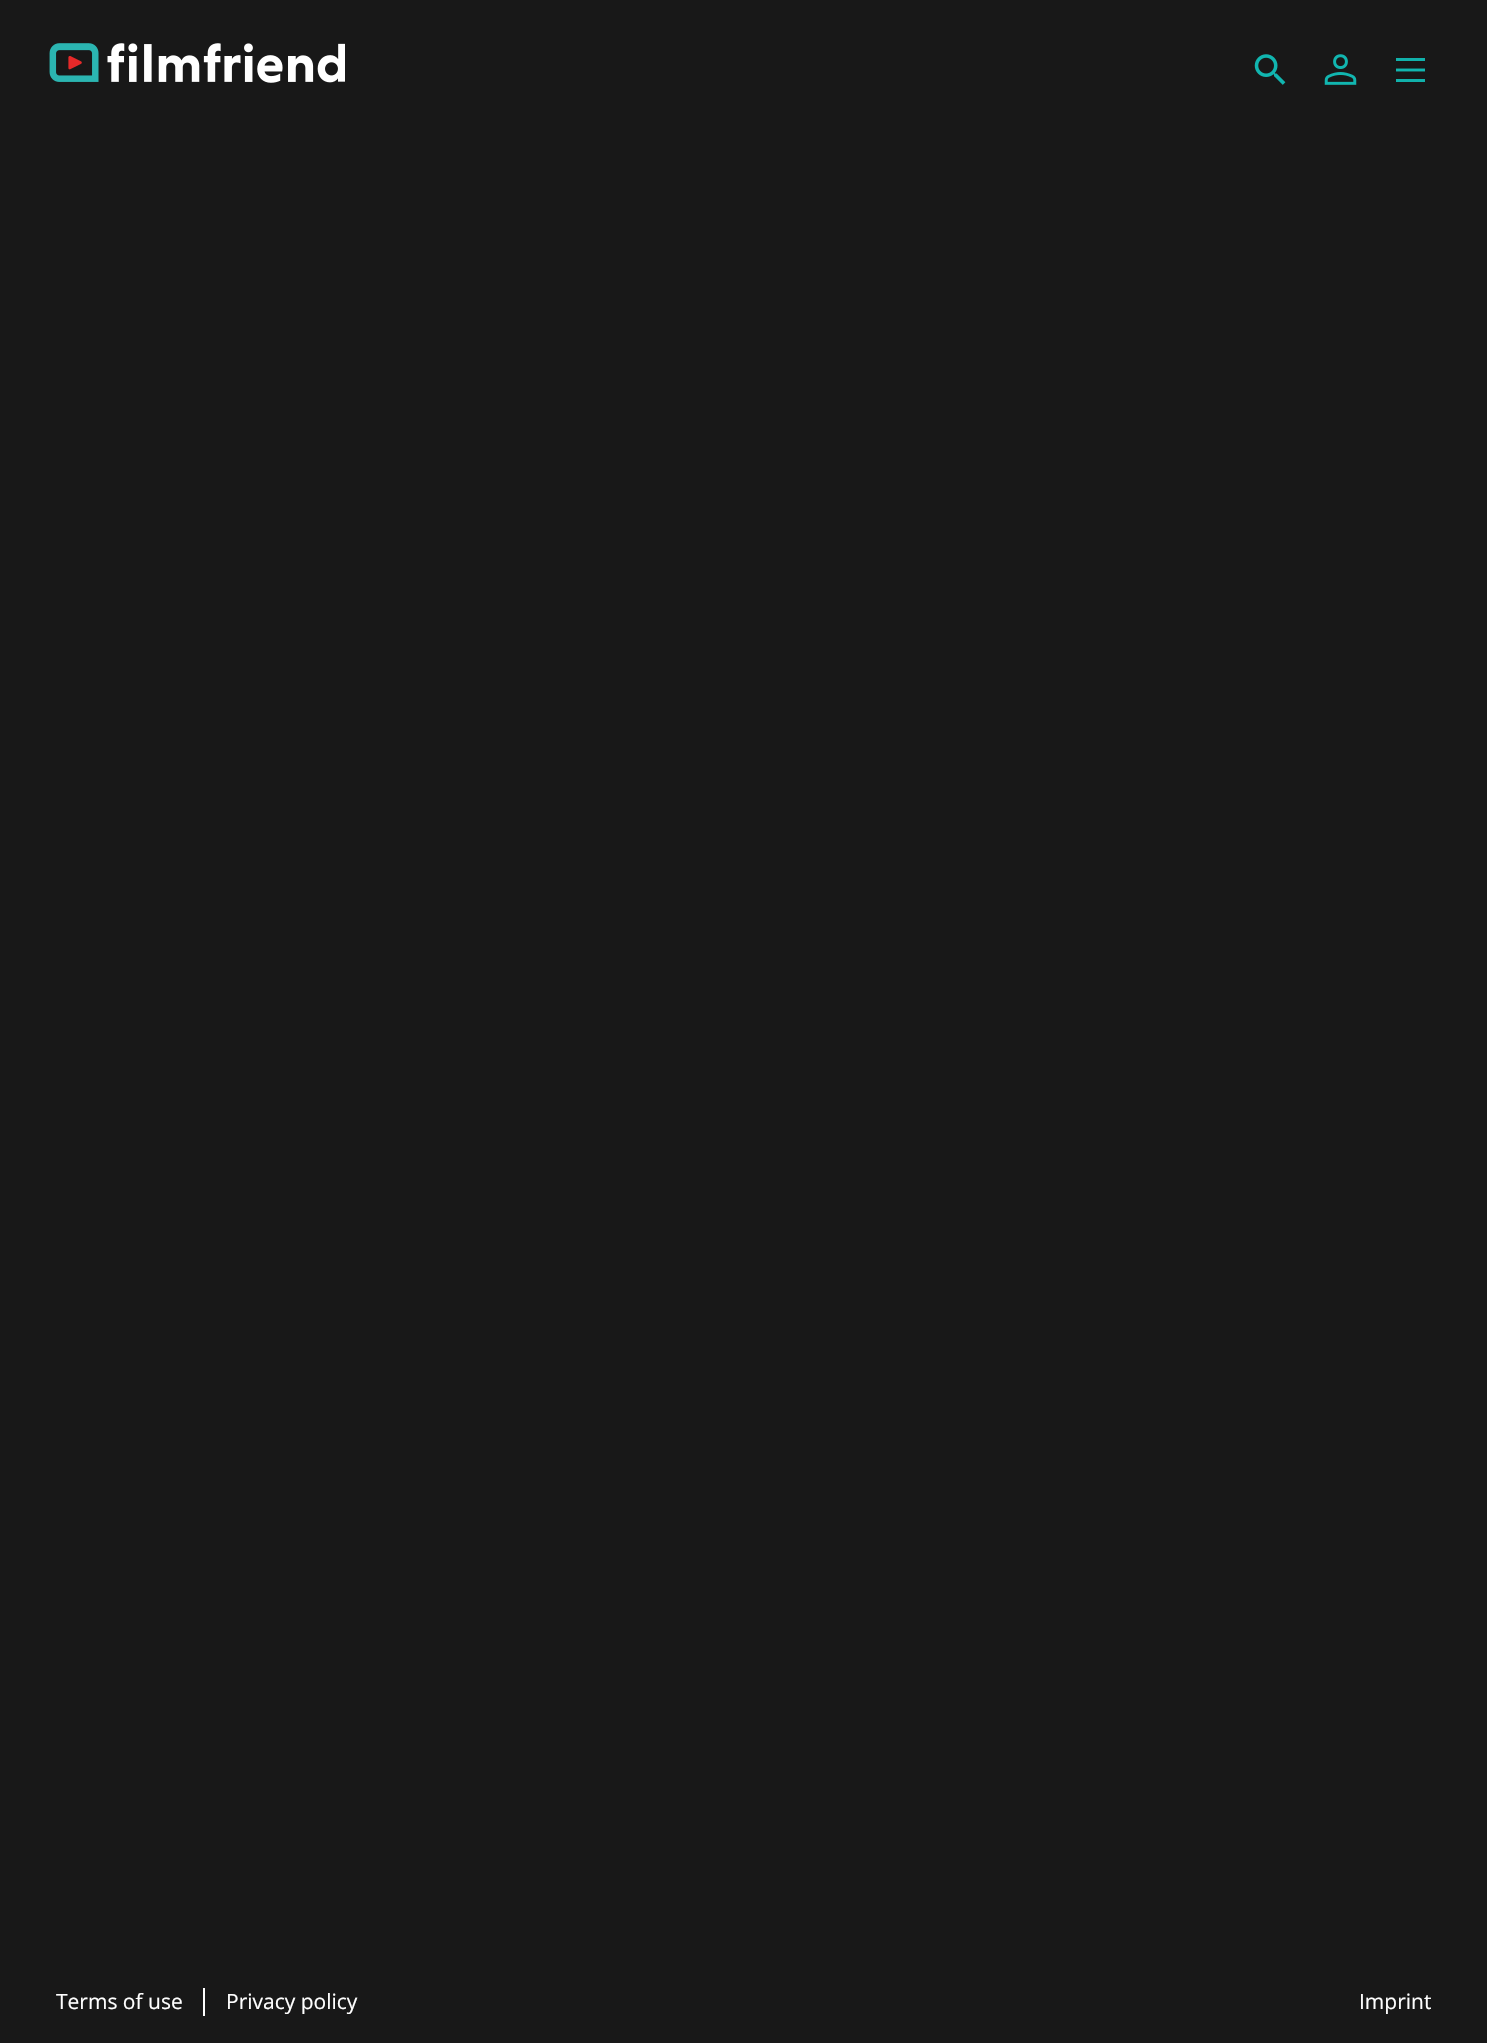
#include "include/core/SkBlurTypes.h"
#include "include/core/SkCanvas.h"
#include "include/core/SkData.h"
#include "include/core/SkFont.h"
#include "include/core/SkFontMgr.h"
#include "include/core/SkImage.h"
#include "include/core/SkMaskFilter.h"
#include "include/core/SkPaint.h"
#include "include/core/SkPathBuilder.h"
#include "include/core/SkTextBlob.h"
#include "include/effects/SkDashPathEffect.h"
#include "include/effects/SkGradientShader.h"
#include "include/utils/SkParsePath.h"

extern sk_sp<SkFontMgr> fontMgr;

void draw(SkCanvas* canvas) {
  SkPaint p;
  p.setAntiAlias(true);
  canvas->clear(SkColorSetRGB(24, 24, 24));
  canvas->drawImageRect(SkImages::DeferredFromEncodedData(SkData::MakeFromFileName("images/1.png")), SkRect::MakeLTRB(49, 43, 345, 83), SkSamplingOptions());
  canvas->drawImageRect(SkImages::DeferredFromEncodedData(SkData::MakeFromFileName("images/2.png")), SkRect::MakeLTRB(1254, 54, 1286, 85), SkSamplingOptions());
  canvas->drawImageRect(SkImages::DeferredFromEncodedData(SkData::MakeFromFileName("images/3.png")), SkRect::MakeLTRB(1324, 54, 1357, 85), SkSamplingOptions());
  p.setColor(SkColorSetRGB(17, 177, 171));
  canvas->drawRect(SkRect::MakeLTRB(1396, 58, 1425, 61), p);
  p.setStyle(SkPaint::kStroke_Style);
  p.setStrokeWidth(2.9f);
  p.setColor(SkColorSetRGB(17, 182, 176));
  canvas->drawPath(SkPathBuilder().moveTo(1396, 70).lineTo(1425, 70).detach(), p);
  p.setStyle(SkPaint::kFill_Style);
  p.setColor(SkColorSetRGB(17, 177, 171));
  canvas->drawRect(SkRect::MakeLTRB(1396, 79, 1425, 82), p);
  p.setColor(SK_ColorWHITE);
  canvas->drawRect(SkRect::MakeLTRB(203, 1988, 205, 2016), p);
  SkFont font1(fontMgr->matchFamilyStyle("Open Sans", SkFontStyle::Normal()), 21);
  font1.setSubpixel(true);
  canvas->drawString("Terms of use", 56, 2009, font1, p);
  canvas->drawString("Privacy policy", 226, 2009, font1, p);
  canvas->drawString("Imprint", 1359, 2009, font1, p);
}
